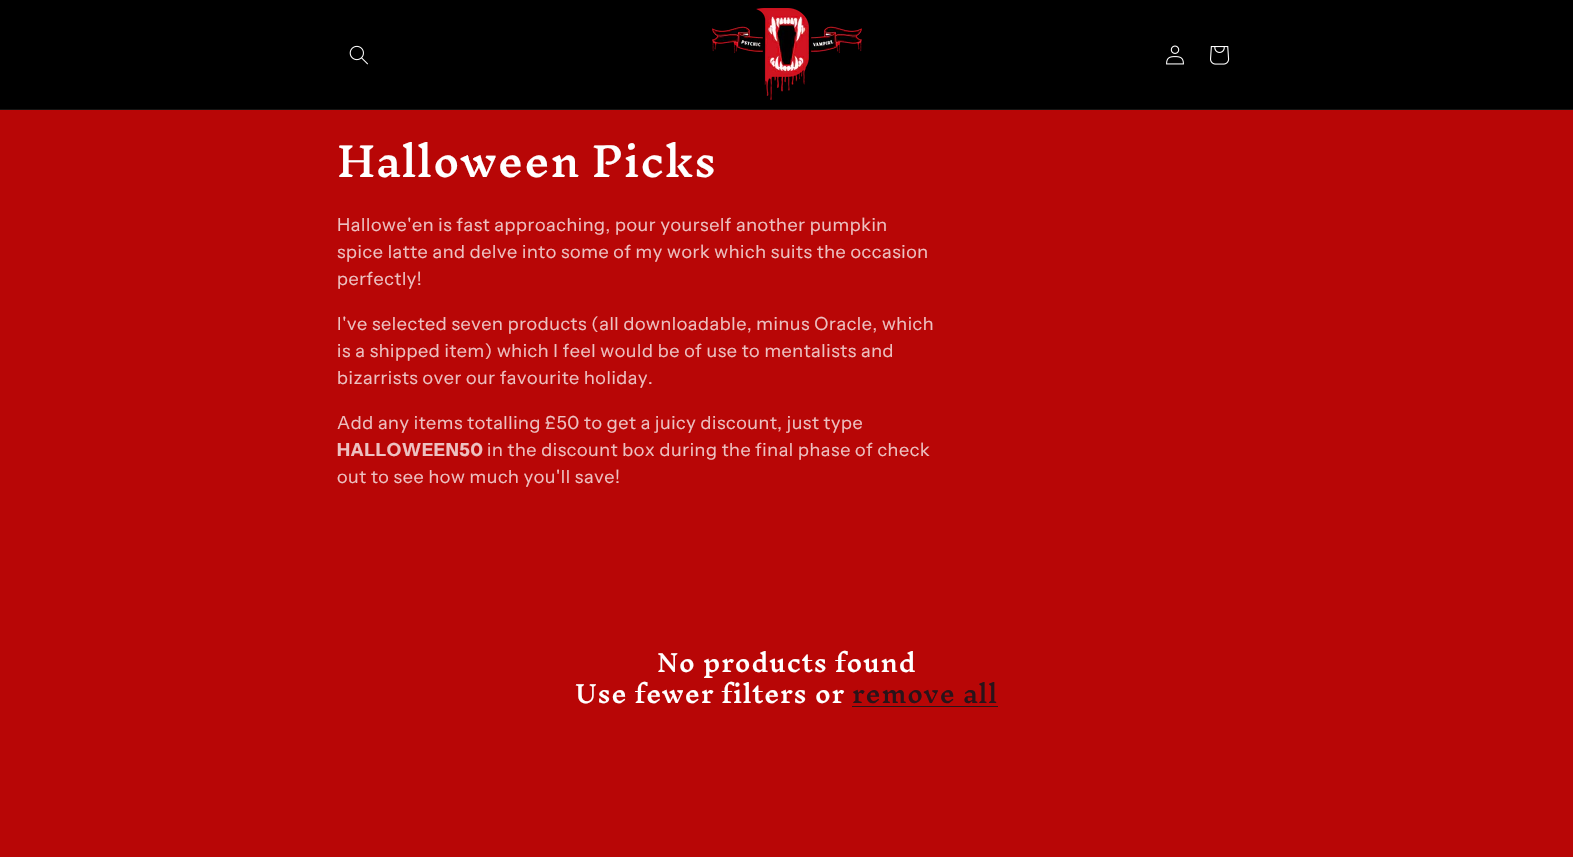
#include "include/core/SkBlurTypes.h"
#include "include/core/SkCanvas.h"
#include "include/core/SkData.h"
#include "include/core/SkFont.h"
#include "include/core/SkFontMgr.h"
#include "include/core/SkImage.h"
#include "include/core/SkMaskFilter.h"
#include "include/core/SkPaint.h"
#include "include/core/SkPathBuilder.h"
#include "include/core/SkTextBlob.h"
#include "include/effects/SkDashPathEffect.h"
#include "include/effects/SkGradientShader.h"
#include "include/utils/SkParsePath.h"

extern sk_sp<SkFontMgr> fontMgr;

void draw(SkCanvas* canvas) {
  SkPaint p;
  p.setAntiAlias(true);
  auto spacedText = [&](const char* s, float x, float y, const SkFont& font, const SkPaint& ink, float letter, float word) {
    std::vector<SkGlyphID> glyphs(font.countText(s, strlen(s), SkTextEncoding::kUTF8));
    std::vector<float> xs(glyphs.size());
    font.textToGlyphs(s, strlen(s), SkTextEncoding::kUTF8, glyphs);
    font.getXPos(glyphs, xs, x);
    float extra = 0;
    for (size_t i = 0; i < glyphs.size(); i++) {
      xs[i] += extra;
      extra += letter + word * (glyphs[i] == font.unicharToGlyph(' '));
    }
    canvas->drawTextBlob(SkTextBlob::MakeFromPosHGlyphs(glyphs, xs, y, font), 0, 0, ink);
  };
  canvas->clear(SkColorSetRGB(184, 6, 6));
  p.setColor(SK_ColorBLACK);
  canvas->drawRect(SkRect::MakeLTRB(0, 0, 1573, 109), p);
  p.setColor(SkColorSetRGB(20, 20, 20));
  canvas->drawRect(SkRect::MakeLTRB(0, 109, 1573, 110), p);
  canvas->drawImageRect(SkImages::DeferredFromEncodedData(SkData::MakeFromFileName("images/1.png")), SkRect::MakeLTRB(349, 45, 368, 65), SkSamplingOptions());
  canvas->drawImageRect(SkImages::DeferredFromEncodedData(SkData::MakeFromFileName("images/2.png")), SkRect::MakeLTRB(712, 8, 862, 100), SkSamplingOptions());
  canvas->drawImageRect(SkImages::DeferredFromEncodedData(SkData::MakeFromFileName("images/3.png")), SkRect::MakeLTRB(1166, 45, 1184, 65), SkSamplingOptions());
  canvas->drawImageRect(SkImages::DeferredFromEncodedData(SkData::MakeFromFileName("images/4.png")), SkRect::MakeLTRB(1210, 46, 1230, 65), SkSamplingOptions());
  p.setColor(SkColorSetRGB(42, 19, 25));
  canvas->drawRect(SkRect::MakeLTRB(852, 706, 998, 707), p);
  SkFont font1(fontMgr->matchFamilyStyle("Inknut Antiqua", SkFontStyle(500, SkFontStyle::kNormal_Width, SkFontStyle::kUpright_Slant)), 40);
  font1.setSubpixel(true);
  p.setColor(SK_ColorWHITE);
  spacedText("Halloween Picks", 337, 177, font1, p, 0.6f, 0);
  SkFont font2(fontMgr->matchFamilyStyle("Instrument Sans", SkFontStyle::Normal()), 18);
  font2.setSubpixel(true);
  p.setColor(SkColorSetRGB(237, 193, 193));
  spacedText("Hallowe'en is fast approaching, pour yourself another pumpkin", 337, 231, font2, p, 0.6f, 0);
  spacedText("spice latte and delve into some of my work which suits the occasion", 337, 258, font2, p, 0.6f, 0);
  spacedText("perfectly!", 337, 285, font2, p, 0.6f, 0);
  spacedText("I've selected seven products (all downloadable, minus Oracle, which", 337, 330, font2, p, 0.6f, 0);
  spacedText("is a shipped item) which I feel would be of use to mentalists and", 337, 357, font2, p, 0.6f, 0);
  spacedText("bizarrists over our favourite holiday.", 337, 384, font2, p, 0.6f, 0);
  spacedText("Add any items totalling £50 to get a juicy discount, just type", 337, 429, font2, p, 0.6f, 0);
  SkFont font3(fontMgr->matchFamilyStyle("Instrument Sans", SkFontStyle::Bold()), 18);
  font3.setSubpixel(true);
  spacedText("HALLOWEEN50", 337, 456, font3, p, 0.6f, 0);
  spacedText("in the discount box during the final phase of check", 487, 456, font2, p, 0.6f, 0);
  spacedText("out to see how much you'll save!", 337, 483, font2, p, 0.6f, 0);
  SkFont font4(fontMgr->matchFamilyStyle("Inknut Antiqua", SkFontStyle(500, SkFontStyle::kNormal_Width, SkFontStyle::kUpright_Slant)), 24);
  font4.setSubpixel(true);
  p.setColor(SK_ColorWHITE);
  spacedText("No products found", 657, 672, font4, p, 0.6f, 0);
  spacedText("Use fewer filters or", 575, 703, font4, p, 0.6f, 0);
  p.setColor(SkColorSetRGB(42, 19, 25));
  spacedText("remove all", 852, 703, font4, p, 0.6f, 0);
}
